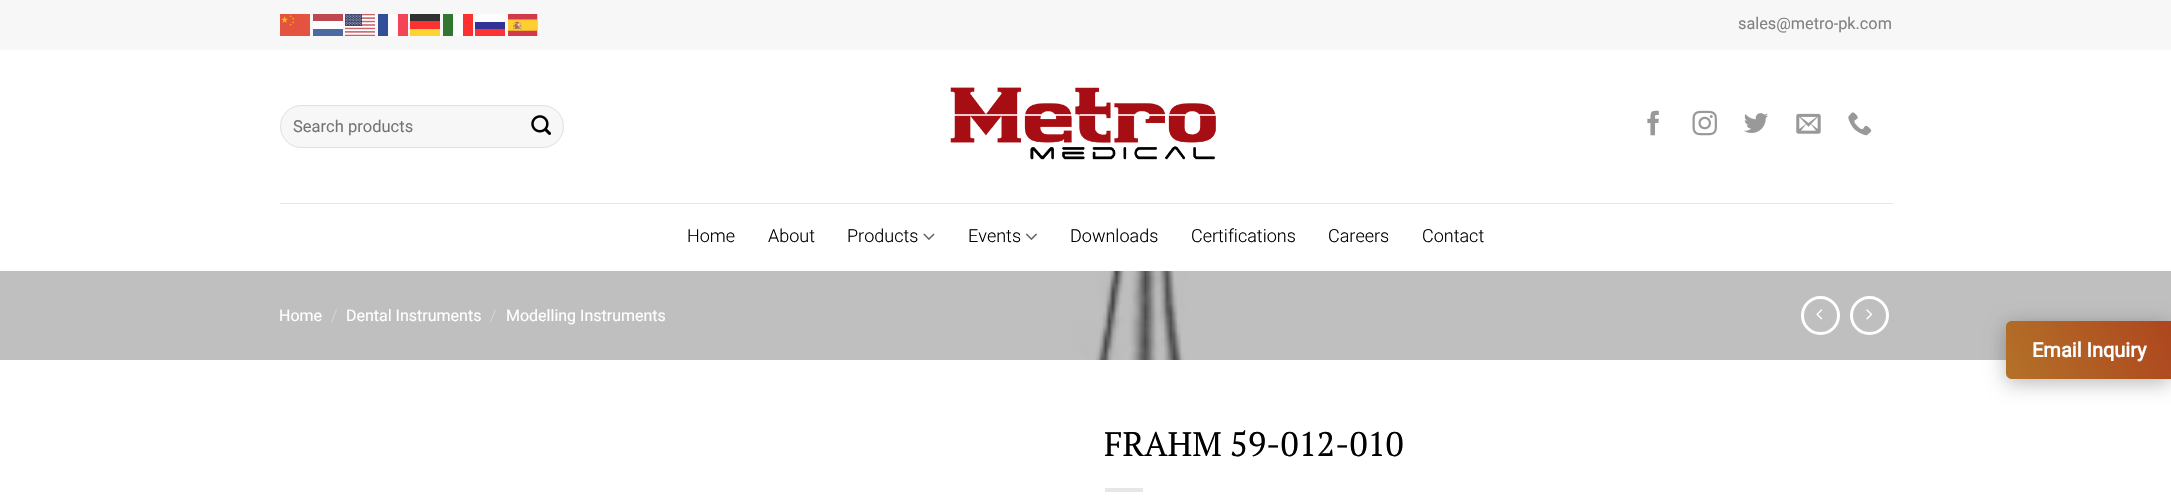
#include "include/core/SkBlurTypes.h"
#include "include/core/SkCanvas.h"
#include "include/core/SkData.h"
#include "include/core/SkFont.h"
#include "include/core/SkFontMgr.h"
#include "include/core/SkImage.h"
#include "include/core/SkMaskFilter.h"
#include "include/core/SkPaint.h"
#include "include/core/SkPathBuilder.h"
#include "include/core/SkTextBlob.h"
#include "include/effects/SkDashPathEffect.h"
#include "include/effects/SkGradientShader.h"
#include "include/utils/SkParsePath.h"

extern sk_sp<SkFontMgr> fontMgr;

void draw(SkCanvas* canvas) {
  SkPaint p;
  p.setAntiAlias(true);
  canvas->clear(SK_ColorWHITE);
  p.setColor(SkColorSetRGB(247, 247, 247));
  canvas->drawRect(SkRect::MakeLTRB(0, 0, 2171, 50), p);
  canvas->drawImageRect(SkImages::DeferredFromEncodedData(SkData::MakeFromFileName("images/1.png")), SkRect::MakeLTRB(280, 14, 310, 36), SkSamplingOptions());
  p.setColor(SkColorSetRGB(189, 72, 81));
  canvas->drawRect(SkRect::MakeLTRB(313, 14, 343, 21), p);
  canvas->drawImageRect(SkImages::DeferredFromEncodedData(SkData::MakeFromFileName("images/2.png")), SkRect::MakeLTRB(345, 14, 375, 36), SkSamplingOptions());
  p.setColor(SkColorSetRGB(49, 80, 151));
  canvas->drawRect(SkRect::MakeLTRB(378, 14, 388, 36), p);
  p.setColor(SkColorSetRGB(253, 253, 253));
  canvas->drawRect(SkRect::MakeLTRB(388, 14, 398, 36), p);
  p.setColor(SkColorSetRGB(244, 69, 88));
  canvas->drawRect(SkRect::MakeLTRB(398, 14, 408, 36), p);
  p.setColor(SkColorSetRGB(49, 49, 49));
  canvas->drawRect(SkRect::MakeLTRB(410, 14, 440, 21), p);
  p.setColor(SkColorSetRGB(49, 119, 49));
  canvas->drawRect(SkRect::MakeLTRB(443, 14, 453, 36), p);
  p.setColor(SkColorSetRGB(253, 253, 253));
  canvas->drawRect(SkRect::MakeLTRB(453, 14, 463, 36), p);
  p.setColor(SkColorSetRGB(251, 49, 49));
  canvas->drawRect(SkRect::MakeLTRB(463, 14, 473, 36), p);
  p.setColor(SkColorSetRGB(253, 253, 253));
  canvas->drawRect(SkRect::MakeLTRB(475, 14, 505, 22), p);
  canvas->drawImageRect(SkImages::DeferredFromEncodedData(SkData::MakeFromFileName("images/3.png")), SkRect::MakeLTRB(508, 14, 538, 36), SkSamplingOptions());
  canvas->drawRect(SkRect::MakeLTRB(313, 21, 343, 29), p);
  p.setColor(SkColorSetRGB(253, 49, 49));
  canvas->drawRect(SkRect::MakeLTRB(410, 21, 440, 29), p);
  p.setColor(SkColorSetRGB(50, 50, 150));
  canvas->drawRect(SkRect::MakeLTRB(475, 22, 505, 29), p);
  p.setColor(SkColorSetRGB(76, 105, 161));
  canvas->drawRect(SkRect::MakeLTRB(313, 29, 343, 36), p);
  p.setColor(SkColorSetRGB(253, 213, 49));
  canvas->drawRect(SkRect::MakeLTRB(410, 29, 440, 36), p);
  p.setColor(SkColorSetRGB(253, 50, 50));
  canvas->drawRect(SkRect::MakeLTRB(475, 29, 505, 36), p);
  p.setColor(SkColorSetRGB(247, 247, 247));
  canvas->drawRoundRect(SkRect::MakeLTRB(280, 105, 564, 148), 21.5f, 21.5f, p);
  p.setStyle(SkPaint::kStroke_Style);
  p.setStrokeWidth(1);
  p.setColor(SkColorSetARGB(23, 0, 0, 0));
  canvas->drawRoundRect(SkRect::MakeLTRB(280.5f, 105.5f, 563.5f, 147.5f), 21, 21, p);
  canvas->drawImageRect(SkImages::DeferredFromEncodedData(SkData::MakeFromFileName("images/4.png")), SkRect::MakeLTRB(531, 115, 551, 135), SkSamplingOptions());
  canvas->drawImageRect(SkImages::DeferredFromEncodedData(SkData::MakeFromFileName("images/5.png")), SkRect::MakeLTRB(950, 87, 1216, 160), SkSamplingOptions());
  canvas->drawImageRect(SkImages::DeferredFromEncodedData(SkData::MakeFromFileName("images/6.png")), SkRect::MakeLTRB(1647, 110, 1659, 136), SkSamplingOptions());
  canvas->drawImageRect(SkImages::DeferredFromEncodedData(SkData::MakeFromFileName("images/7.png")), SkRect::MakeLTRB(1692, 110, 1717, 136), SkSamplingOptions());
  canvas->drawImageRect(SkImages::DeferredFromEncodedData(SkData::MakeFromFileName("images/8.png")), SkRect::MakeLTRB(1744, 113, 1768, 133), SkSamplingOptions());
  canvas->drawImageRect(SkImages::DeferredFromEncodedData(SkData::MakeFromFileName("images/9.png")), SkRect::MakeLTRB(1796, 113, 1821, 134), SkSamplingOptions());
  canvas->drawImageRect(SkImages::DeferredFromEncodedData(SkData::MakeFromFileName("images/10.png")), SkRect::MakeLTRB(1848, 112, 1872, 136), SkSamplingOptions());
  p.setStyle(SkPaint::kFill_Style);
  p.setColor(SkColorSetRGB(230, 230, 230));
  canvas->drawRect(SkRect::MakeLTRB(280, 203, 1893, 204), p);
  canvas->drawImageRect(SkImages::DeferredFromEncodedData(SkData::MakeFromFileName("images/11.png")), SkRect::MakeLTRB(923, 233, 935, 240), SkSamplingOptions());
  canvas->drawImageRect(SkImages::DeferredFromEncodedData(SkData::MakeFromFileName("images/12.png")), SkRect::MakeLTRB(1025, 233, 1037, 240), SkSamplingOptions());
  canvas->drawImageRect(SkImages::DeferredFromEncodedData(SkData::MakeFromFileName("images/13.png")), SkRect::MakeLTRB(0, 271, 2171, 360), SkSamplingOptions());
  p.setStyle(SkPaint::kStroke_Style);
  p.setStrokeWidth(3);
  p.setColor(SK_ColorWHITE);
  canvas->drawCircle(1820.5f, 315.5f, 18, p);
  canvas->drawImageRect(SkImages::DeferredFromEncodedData(SkData::MakeFromFileName("images/14.png")), SkRect::MakeLTRB(1816, 309, 1823, 320), SkSamplingOptions());
  canvas->drawCircle(1869.5f, 315.5f, 18, p);
  canvas->drawImageRect(SkImages::DeferredFromEncodedData(SkData::MakeFromFileName("images/15.png")), SkRect::MakeLTRB(1866, 309, 1873, 320), SkSamplingOptions());
  p.setStyle(SkPaint::kFill_Style);
  p.setColor(SkColorSetRGB(230, 230, 230));
  canvas->drawRect(SkRect::MakeLTRB(1105, 488, 1143, 492), p);
  p.setColor(SkColorSetARGB(71, 0, 0, 0));
  p.setMaskFilter(SkMaskFilter::MakeBlur(kNormal_SkBlurStyle, 10));
  canvas->drawRoundRect(SkRect::MakeLTRB(2006, 325, 2171, 383), 6, 6, p);
  p.setMaskFilter(nullptr);
  {
    const SkColor colors[] = {SkColorSetRGB(167, 13, 18), SkColorSetRGB(167, 13, 18), SkColorSetRGB(183, 144, 47)};
    const float stops[] = {0, 0.5f, 1};
    const SkPoint ends[] = {{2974, 273}, {2029, 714}};
    p.setShader(SkGradientShader::MakeLinear(ends, colors, stops, 3, SkTileMode::kClamp));
    p.setAlpha(255);
  }
  canvas->drawPath(SkPathBuilder().moveTo(2012, 321).lineTo(2171, 321).lineTo(2171, 379).lineTo(2012, 379).cubicTo(2008.5f, 379, 2006, 376.5f, 2006, 373).lineTo(2006, 327).cubicTo(2006, 323.5f, 2008.5f, 321, 2012, 321).close().detach(), p);
  SkFont font1(fontMgr->matchFamilyStyle("Roboto", SkFontStyle::Normal()), 16.25f);
  font1.setSubpixel(true);
  p.setShader(nullptr);
  p.setColor(SkColorSetRGB(130, 130, 130));
  canvas->drawString("sales@metro-pk.com", 1738, 29, font1, p);
  SkFont font2(fontMgr->matchFamilyStyle("Roboto", SkFontStyle::Normal()), 16.5f);
  font2.setSubpixel(true);
  p.setColor(SkColorSetRGB(117, 117, 117));
  canvas->drawString("Search products", 293, 132, font2, p);
  SkFont font3(fontMgr->matchFamilyStyle("Roboto", SkFontStyle(300, SkFontStyle::kNormal_Width, SkFontStyle::kUpright_Slant)), 18);
  font3.setSubpixel(true);
  p.setColor(SK_ColorBLACK);
  canvas->drawString("Home", 687, 242, font3, p);
  canvas->drawString("About", 768, 242, font3, p);
  canvas->drawString("Products", 847, 242, font3, p);
  canvas->drawString("Events", 968, 242, font3, p);
  canvas->drawString("Downloads", 1070, 242, font3, p);
  canvas->drawString("Certifications", 1191, 242, font3, p);
  canvas->drawString("Careers", 1328, 242, font3, p);
  canvas->drawString("Contact", 1422, 242, font3, p);
  SkFont font4(fontMgr->matchFamilyStyle("Roboto", SkFontStyle::Normal()), 16);
  font4.setSubpixel(true);
  p.setColor(SK_ColorWHITE);
  canvas->drawString("Home", 279, 321, font4, p);
  SkFont font5(fontMgr->matchFamilyStyle("Roboto", SkFontStyle(300, SkFontStyle::kNormal_Width, SkFontStyle::kUpright_Slant)), 16);
  font5.setSubpixel(true);
  p.setColor(SkColorSetRGB(214, 214, 214));
  canvas->drawString("/", 331, 321, font5, p);
  p.setColor(SK_ColorWHITE);
  canvas->drawString("Dental Instruments", 346, 321, font4, p);
  p.setColor(SkColorSetRGB(214, 214, 214));
  canvas->drawString("/", 490, 321, font5, p);
  p.setColor(SK_ColorWHITE);
  canvas->drawString("Modelling Instruments", 506, 321, font4, p);
  SkFont font6(fontMgr->matchFamilyStyle("PT Serif", SkFontStyle::Normal()), 34);
  font6.setSubpixel(true);
  p.setColor(SK_ColorBLACK);
  canvas->drawString("FRAHM 59-012-010", 1104, 456, font6, p);
  SkFont font7(fontMgr->matchFamilyStyle("Roboto", SkFontStyle::Bold()), 20);
  font7.setSubpixel(true);
  p.setColor(SK_ColorWHITE);
  canvas->drawString("Email Inquiry", 2032, 357, font7, p);
}
